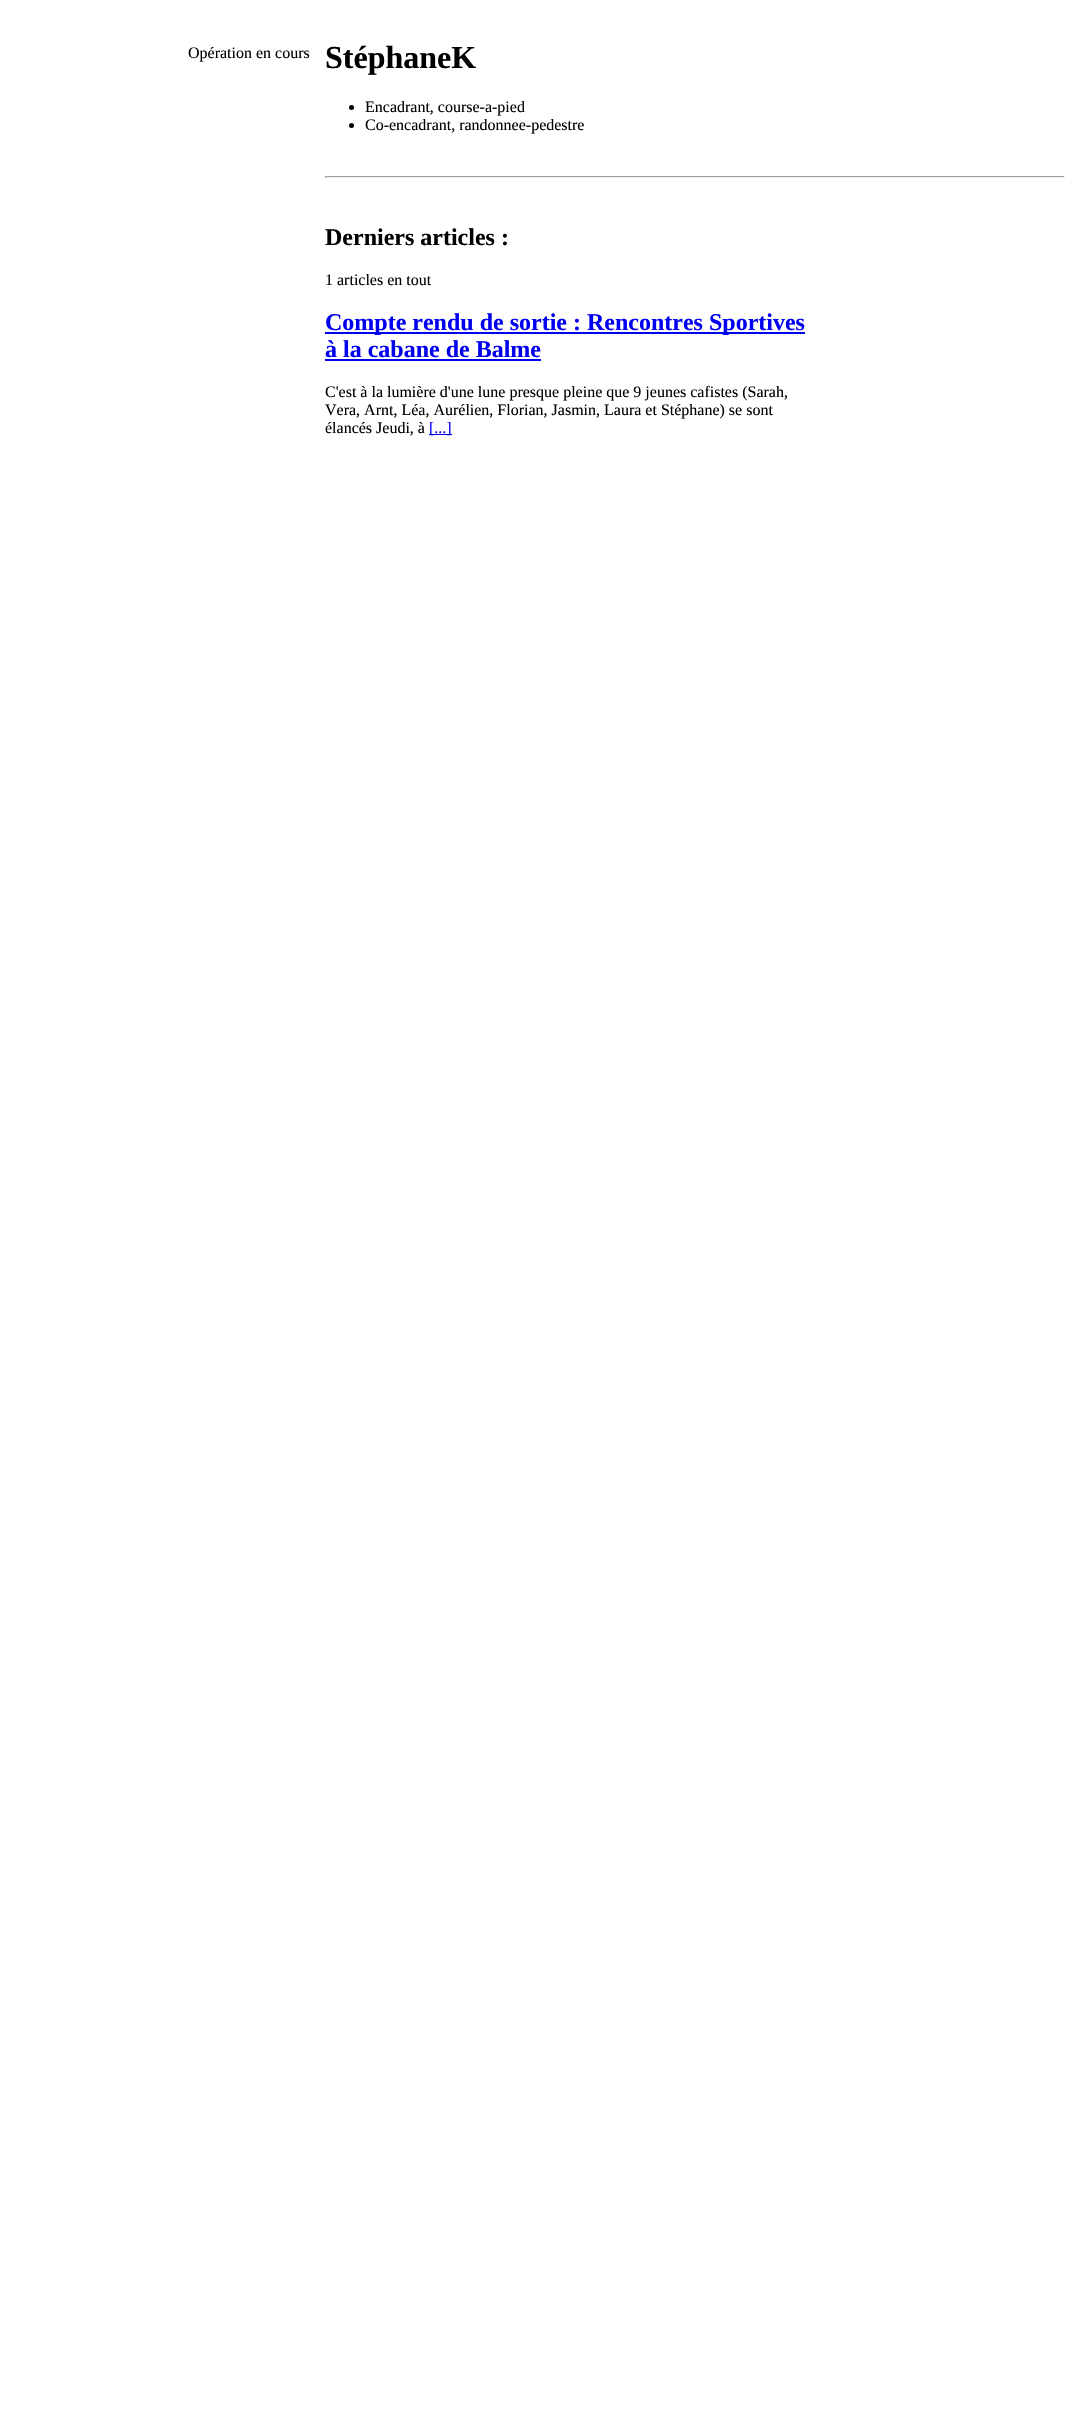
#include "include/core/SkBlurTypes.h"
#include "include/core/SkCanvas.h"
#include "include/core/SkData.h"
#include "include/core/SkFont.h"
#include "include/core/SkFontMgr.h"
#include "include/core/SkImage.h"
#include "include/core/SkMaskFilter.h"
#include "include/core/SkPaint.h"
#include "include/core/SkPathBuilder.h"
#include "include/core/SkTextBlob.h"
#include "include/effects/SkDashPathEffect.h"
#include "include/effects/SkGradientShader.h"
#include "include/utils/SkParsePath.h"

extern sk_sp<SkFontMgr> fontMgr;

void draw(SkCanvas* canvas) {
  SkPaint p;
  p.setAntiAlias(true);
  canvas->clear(SK_ColorWHITE);
  p.setColor(SK_ColorBLACK);
  canvas->drawCircle(351.5f, 107.5f, 2.5f, p);
  canvas->drawCircle(351.5f, 125.5f, 2.5f, p);
  p.setColor(SkColorSetRGB(159, 159, 159));
  canvas->drawRect(SkRect::MakeLTRB(325, 176, 1065, 177), p);
  p.setColor(SkColorSetRGB(238, 238, 238));
  canvas->drawRect(SkRect::MakeLTRB(1064, 176, 1065, 178), p);
  canvas->drawRect(SkRect::MakeLTRB(325, 177, 1065, 178), p);
  p.setColor(SkColorSetRGB(159, 159, 159));
  canvas->drawRect(SkRect::MakeLTRB(325, 176, 326, 178), p);
  p.setColor(SkColorSetRGB(0, 0, 238));
  canvas->drawRect(SkRect::MakeLTRB(325, 332, 805, 334), p);
  canvas->drawRect(SkRect::MakeLTRB(325, 359, 541, 361), p);
  canvas->drawRect(SkRect::MakeLTRB(429, 434, 452, 435), p);
  SkFont font1(fontMgr->matchFamilyStyle("Liberation Serif", SkFontStyle::Normal()), 16);
  font1.setSubpixel(true);
  p.setColor(SK_ColorBLACK);
  canvas->drawString("Opération en cours", 188, 58, font1, p);
  SkFont font2(fontMgr->matchFamilyStyle("Liberation Serif", SkFontStyle::Bold()), 32);
  font2.setSubpixel(true);
  canvas->drawString("StéphaneK", 325, 68, font2, p);
  canvas->drawString("Encadrant, course-a-pied", 365, 112, font1, p);
  canvas->drawString("Co-encadrant, randonnee-pedestre", 365, 130, font1, p);
  SkFont font3(fontMgr->matchFamilyStyle("Liberation Serif", SkFontStyle::Bold()), 24);
  font3.setSubpixel(true);
  canvas->drawString("Derniers articles :", 325, 245, font3, p);
  canvas->drawString("1 articles en tout", 325, 285, font1, p);
  p.setColor(SkColorSetRGB(0, 0, 238));
  canvas->drawString("Compte rendu de sortie : Rencontres Sportives", 325, 330, font3, p);
  canvas->drawString("à la cabane de Balme", 325, 357, font3, p);
  p.setColor(SK_ColorBLACK);
  canvas->drawString("C'est à la lumière d'une lune presque pleine que 9 jeunes cafistes (Sarah,", 325, 397, font1, p);
  canvas->drawString("Vera, Arnt, Léa, Aurélien, Florian, Jasmin, Laura et Stéphane) se sont", 325, 415, font1, p);
  canvas->drawString("élancés Jeudi, à", 325, 433, font1, p);
  p.setColor(SkColorSetRGB(0, 0, 238));
  canvas->drawString("[...]", 429, 433, font1, p);
}
